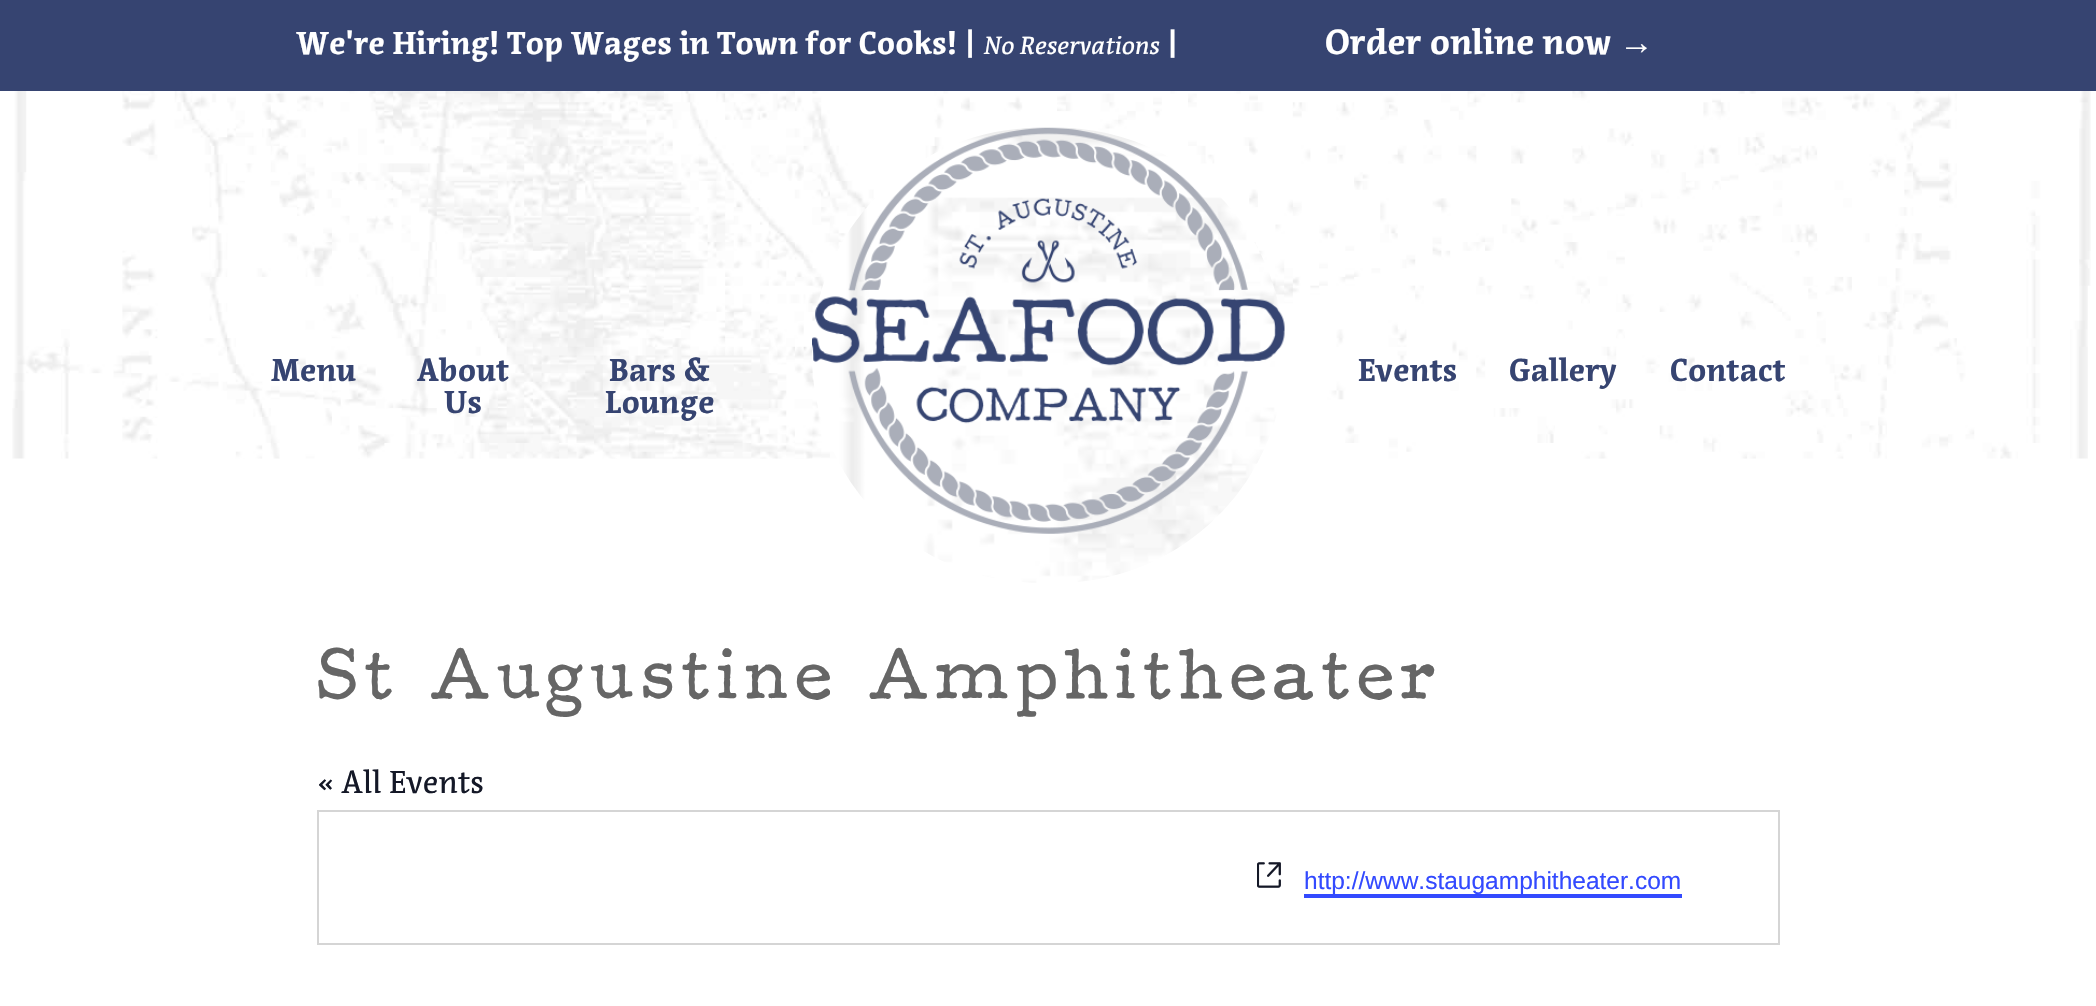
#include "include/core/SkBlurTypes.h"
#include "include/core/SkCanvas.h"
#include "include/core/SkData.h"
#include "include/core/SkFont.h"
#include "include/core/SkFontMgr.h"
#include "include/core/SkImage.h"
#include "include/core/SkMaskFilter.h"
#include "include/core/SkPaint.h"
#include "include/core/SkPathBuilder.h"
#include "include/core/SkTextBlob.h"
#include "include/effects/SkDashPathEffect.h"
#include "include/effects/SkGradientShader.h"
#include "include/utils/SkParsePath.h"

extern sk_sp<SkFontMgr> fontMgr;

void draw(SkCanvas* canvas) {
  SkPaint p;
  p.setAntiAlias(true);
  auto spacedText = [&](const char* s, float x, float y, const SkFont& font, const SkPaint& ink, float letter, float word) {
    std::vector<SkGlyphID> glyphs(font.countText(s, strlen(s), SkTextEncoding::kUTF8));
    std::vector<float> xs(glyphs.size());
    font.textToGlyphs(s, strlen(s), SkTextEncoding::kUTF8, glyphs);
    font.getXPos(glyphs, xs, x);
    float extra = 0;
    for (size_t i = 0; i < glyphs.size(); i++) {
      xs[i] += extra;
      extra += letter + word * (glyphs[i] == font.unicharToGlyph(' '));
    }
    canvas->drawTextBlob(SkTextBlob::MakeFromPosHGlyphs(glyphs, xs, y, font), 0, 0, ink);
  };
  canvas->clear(SK_ColorWHITE);
  p.setColor(SkColorSetRGB(54, 68, 113));
  canvas->drawRect(SkRect::MakeLTRB(0, 0, 2096, 91), p);
  canvas->drawImageRect(SkImages::DeferredFromEncodedData(SkData::MakeFromFileName("images/1.png")), SkRect::MakeLTRB(12, 91, 2091, 459), SkSamplingOptions());
  canvas->drawImageRect(SkImages::DeferredFromEncodedData(SkData::MakeFromFileName("images/2.png")), SkRect::MakeLTRB(812, 128, 1280, 583), SkSamplingOptions());
  canvas->drawImageRect(SkImages::DeferredFromEncodedData(SkData::MakeFromFileName("images/3.png")), SkRect::MakeLTRB(812, 127, 1285, 534), SkSamplingOptions());
  p.setStyle(SkPaint::kStroke_Style);
  p.setStrokeWidth(2);
  p.setColor(SkColorSetRGB(213, 213, 213));
  canvas->drawRect(SkRect::MakeLTRB(318, 811, 1779, 944), p);
  canvas->drawImageRect(SkImages::DeferredFromEncodedData(SkData::MakeFromFileName("images/4.png")), SkRect::MakeLTRB(1257, 862, 1281, 888), SkSamplingOptions());
  p.setStyle(SkPaint::kFill_Style);
  p.setColor(SkColorSetRGB(51, 74, 255));
  canvas->drawRect(SkRect::MakeLTRB(1304, 894, 1682, 898), p);
  SkFont font1(fontMgr->matchFamilyStyle("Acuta", SkFontStyle::Bold()), 31.5f);
  font1.setSubpixel(true);
  p.setColor(SK_ColorWHITE);
  canvas->drawString("We're Hiring! Top Wages in Town for Cooks! |", 296, 54, font1, p);
  SkFont font2(fontMgr->matchFamilyStyle("Acuta", SkFontStyle::Italic()), 24.5f);
  font2.setSubpixel(true);
  canvas->drawString("No Reservations", 983, 54, font2, p);
  canvas->drawString("|", 1167, 54, font1, p);
  SkFont font3(fontMgr->matchFamilyStyle("Acuta", SkFontStyle::Bold()), 34.75f);
  font3.setSubpixel(true);
  canvas->drawString("Order online now", 1325, 54, font3, p);
  SkFont font4(fontMgr->matchFamilyStyle("Liberation Serif", SkFontStyle::Bold()), 34.75f);
  font4.setSubpixel(true);
  canvas->drawString("→", 1619, 54, font4, p);
  p.setColor(SkColorSetRGB(54, 68, 113));
  canvas->drawString("Menu", 271, 381, font1, p);
  canvas->drawString("About", 417, 381, font1, p);
  canvas->drawString("Us", 444, 413, font1, p);
  canvas->drawString("Bars &", 609, 381, font1, p);
  canvas->drawString("Lounge", 605, 413, font1, p);
  canvas->drawString("Events", 1358, 381, font1, p);
  canvas->drawString("Gallery", 1509, 381, font1, p);
  canvas->drawString("Contact", 1670, 381, font1, p);
  SkFont font5(fontMgr->matchFamilyStyle("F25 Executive", SkFontStyle::Normal()), 73.5f);
  font5.setSubpixel(true);
  p.setColor(SkColorSetRGB(102, 102, 102));
  spacedText("St Augustine Amphitheater", 317, 698, font5, p, 5.25f, 0);
  SkFont font6(fontMgr->matchFamilyStyle("Acuta", SkFontStyle::Normal()), 31.5f);
  font6.setSubpixel(true);
  p.setColor(SkColorSetRGB(20, 24, 39));
  canvas->drawString("« All Events", 317, 793, font6, p);
  SkFont font7(fontMgr->matchFamilyStyle("Liberation Sans", SkFontStyle::Normal()), 24.5f);
  font7.setSubpixel(true);
  p.setColor(SkColorSetRGB(51, 74, 255));
  canvas->drawString("http://www.staugamphitheater.com", 1304, 889, font7, p);
}
